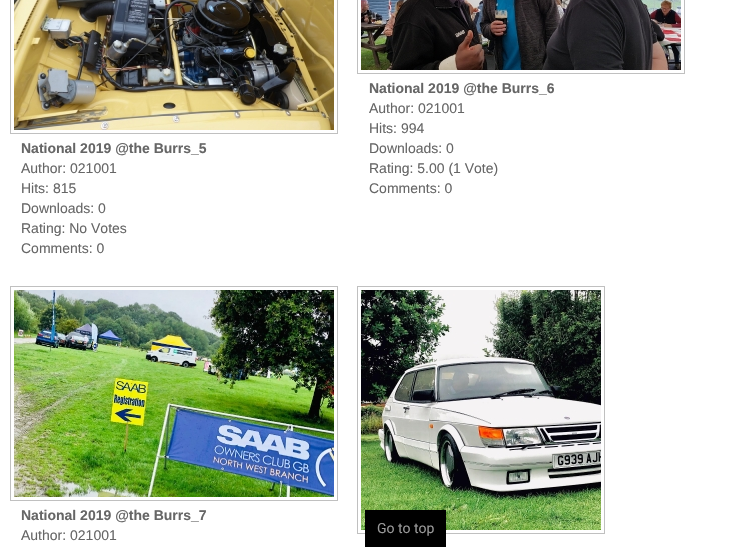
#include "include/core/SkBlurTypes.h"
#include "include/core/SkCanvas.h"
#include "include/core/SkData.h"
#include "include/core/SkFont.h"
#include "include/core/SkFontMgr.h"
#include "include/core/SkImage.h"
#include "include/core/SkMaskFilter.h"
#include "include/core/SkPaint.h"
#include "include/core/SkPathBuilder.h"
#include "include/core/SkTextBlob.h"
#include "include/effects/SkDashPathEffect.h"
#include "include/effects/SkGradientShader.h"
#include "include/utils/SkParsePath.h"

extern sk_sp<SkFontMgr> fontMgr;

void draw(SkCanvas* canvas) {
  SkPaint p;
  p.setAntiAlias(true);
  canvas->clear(SK_ColorWHITE);
  p.setStyle(SkPaint::kStroke_Style);
  p.setStrokeWidth(1);
  p.setColor(SkColorSetRGB(192, 192, 192));
  canvas->drawRect(SkRect::MakeLTRB(10.5f, -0.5f, 337.5f, 133.5f), p);
  canvas->drawImageRect(SkImages::DeferredFromEncodedData(SkData::MakeFromFileName("images/1.png")), SkRect::MakeLTRB(14, 0, 334, 130), SkSamplingOptions());
  canvas->drawRect(SkRect::MakeLTRB(357.5f, -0.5f, 684.5f, 73.5f), p);
  canvas->drawImageRect(SkImages::DeferredFromEncodedData(SkData::MakeFromFileName("images/2.png")), SkRect::MakeLTRB(361, 0, 681, 70), SkSamplingOptions());
  canvas->drawRect(SkRect::MakeLTRB(10.5f, 286.5f, 337.5f, 500.5f), p);
  canvas->drawImageRect(SkImages::DeferredFromEncodedData(SkData::MakeFromFileName("images/3.png")), SkRect::MakeLTRB(14, 290, 334, 497), SkSamplingOptions());
  canvas->drawRect(SkRect::MakeLTRB(357.5f, 286.5f, 604.5f, 533.5f), p);
  canvas->drawImageRect(SkImages::DeferredFromEncodedData(SkData::MakeFromFileName("images/4.png")), SkRect::MakeLTRB(361, 290, 601, 530), SkSamplingOptions());
  p.setStyle(SkPaint::kFill_Style);
  p.setColor(SK_ColorBLACK);
  canvas->drawRect(SkRect::MakeLTRB(365, 510, 446, 547), p);
  SkFont font1(fontMgr->matchFamilyStyle("Liberation Sans", SkFontStyle::Bold()), 14);
  font1.setSubpixel(true);
  p.setColor(SkColorSetRGB(102, 102, 102));
  canvas->drawString("National 2019 @the Burrs_5", 21, 153, font1, p);
  SkFont font2(fontMgr->matchFamilyStyle("Liberation Sans", SkFontStyle::Normal()), 14);
  font2.setSubpixel(true);
  canvas->drawString("Author: 021001", 21, 173, font2, p);
  canvas->drawString("Hits: 815", 21, 193, font2, p);
  canvas->drawString("Downloads: 0", 21, 213, font2, p);
  canvas->drawString("Rating: No Votes", 21, 233, font2, p);
  canvas->drawString("Comments: 0", 21, 253, font2, p);
  canvas->drawString("National 2019 @the Burrs_6", 369, 93, font1, p);
  canvas->drawString("Author: 021001", 369, 113, font2, p);
  canvas->drawString("Hits: 994", 369, 133, font2, p);
  canvas->drawString("Downloads: 0", 369, 153, font2, p);
  canvas->drawString("Rating: 5.00 (1 Vote)", 369, 173, font2, p);
  canvas->drawString("Comments: 0", 369, 193, font2, p);
  canvas->drawString("National 2019 @the Burrs_7", 21, 520, font1, p);
  canvas->drawString("Author: 021001", 21, 540, font2, p);
  SkFont font3(fontMgr->matchFamilyStyle("Roboto", SkFontStyle::Normal()), 14);
  font3.setSubpixel(true);
  p.setColor(SkColorSetRGB(153, 153, 153));
  canvas->drawString("Go to top", 377, 533, font3, p);
}
